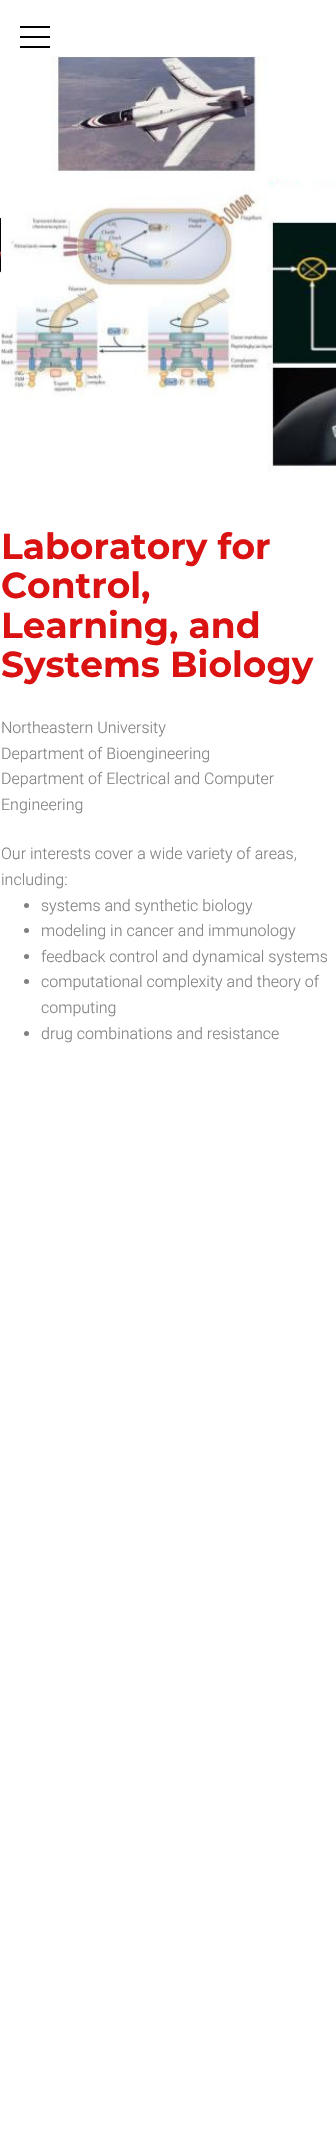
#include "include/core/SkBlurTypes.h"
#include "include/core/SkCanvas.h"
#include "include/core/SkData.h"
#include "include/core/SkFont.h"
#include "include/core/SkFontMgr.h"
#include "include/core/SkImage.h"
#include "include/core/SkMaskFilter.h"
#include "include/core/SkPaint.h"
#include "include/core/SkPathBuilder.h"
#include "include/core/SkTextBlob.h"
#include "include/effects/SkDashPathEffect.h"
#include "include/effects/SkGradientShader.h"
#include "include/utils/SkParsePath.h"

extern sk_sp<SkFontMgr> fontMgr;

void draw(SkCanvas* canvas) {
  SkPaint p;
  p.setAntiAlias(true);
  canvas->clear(SK_ColorWHITE);
  p.setColor(SK_ColorBLACK);
  canvas->drawRect(SkRect::MakeLTRB(20, 36, 50, 38), p);
  canvas->drawRect(SkRect::MakeLTRB(20, 26, 50, 28), p);
  canvas->drawRect(SkRect::MakeLTRB(20, 46, 50, 48), p);
  canvas->drawImageRect(SkImages::DeferredFromEncodedData(SkData::MakeFromFileName("images/1.png")), SkRect::MakeLTRB(0, 218, 1, 273), SkSamplingOptions());
  canvas->drawImageRect(SkImages::DeferredFromEncodedData(SkData::MakeFromFileName("images/2.png")), SkRect::MakeLTRB(1, 56, 336, 472), SkSamplingOptions());
  p.setColor(SkColorSetRGB(128, 128, 128));
  canvas->drawCircle(26.5f, 905.5f, 2.5f, p);
  canvas->drawCircle(26.5f, 930.5f, 2.5f, p);
  canvas->drawCircle(26.5f, 956.5f, 2.5f, p);
  canvas->drawCircle(26.5f, 981.5f, 2.5f, p);
  canvas->drawCircle(26.5f, 1033.5f, 2.5f, p);
  SkFont font1(fontMgr->matchFamilyStyle("Montserrat", SkFontStyle::Bold()), 36);
  font1.setSubpixel(true);
  p.setColor(SkColorSetRGB(218, 18, 18));
  canvas->drawString("Laboratory for", 1, 559, font1, p);
  canvas->drawString("Control,", 1, 598, font1, p);
  canvas->drawString("Learning, and", 1, 638, font1, p);
  canvas->drawString("Systems Biology", 1, 677, font1, p);
  SkFont font2(fontMgr->matchFamilyStyle("Roboto", SkFontStyle(300, SkFontStyle::kNormal_Width, SkFontStyle::kUpright_Slant)), 16);
  font2.setSubpixel(true);
  p.setColor(SkColorSetRGB(128, 128, 128));
  canvas->drawString("Northeastern University", 1, 733, font2, p);
  canvas->drawString("Department of Bioengineering", 1, 759, font2, p);
  canvas->drawString("Department of Electrical and Computer", 1, 784, font2, p);
  canvas->drawString("Engineering", 1, 810, font2, p);
  canvas->drawString("Our interests cover a wide variety of areas,", 1, 859, font2, p);
  canvas->drawString("including:", 1, 885, font2, p);
  canvas->drawString("systems and synthetic biology", 41, 911, font2, p);
  canvas->drawString("modeling in cancer and immunology", 41, 936, font2, p);
  canvas->drawString("feedback control and dynamical systems", 41, 962, font2, p);
  canvas->drawString("computational complexity and theory of", 41, 987, font2, p);
  canvas->drawString("computing", 41, 1013, font2, p);
  canvas->drawString("drug combinations and resistance", 41, 1039, font2, p);
}
